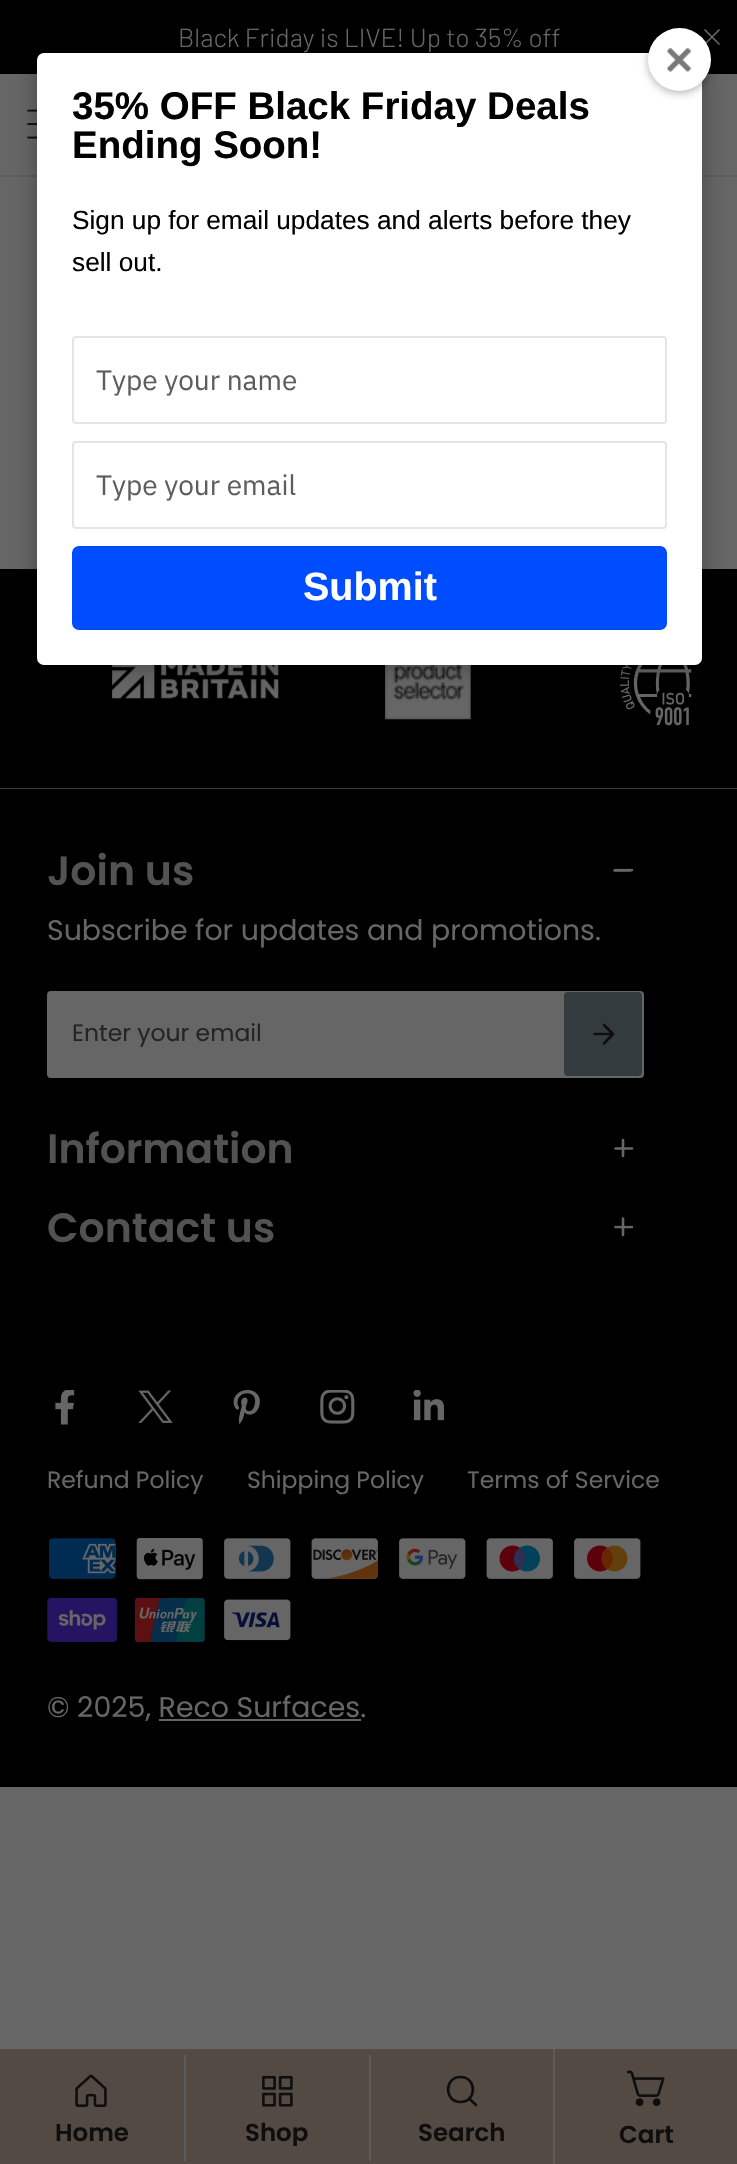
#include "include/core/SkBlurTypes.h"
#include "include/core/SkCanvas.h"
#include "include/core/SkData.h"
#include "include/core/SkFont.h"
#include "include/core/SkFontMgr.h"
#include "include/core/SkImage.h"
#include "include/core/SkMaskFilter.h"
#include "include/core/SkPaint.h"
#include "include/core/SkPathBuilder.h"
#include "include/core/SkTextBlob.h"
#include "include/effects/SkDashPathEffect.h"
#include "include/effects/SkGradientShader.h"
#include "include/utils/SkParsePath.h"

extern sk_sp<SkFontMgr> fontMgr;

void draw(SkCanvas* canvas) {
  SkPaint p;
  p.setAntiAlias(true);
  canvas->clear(SkColorSetRGB(102, 102, 102));
  p.setColor(SK_ColorBLACK);
  canvas->drawRect(SkRect::MakeLTRB(0, 0, 737, 74), p);
  p.setStyle(SkPaint::kStroke_Style);
  p.setStrokeWidth(1.7f);
  p.setStrokeCap(SkPaint::kRound_Cap);
  p.setStrokeJoin(SkPaint::kRound_Join);
  p.setColor(SkColorSetRGB(102, 102, 102));
  canvas->drawPath(SkPathBuilder().moveTo(719, 30).lineTo(705, 44).moveTo(705, 30).lineTo(719, 44).detach(), p);
  p.setStyle(SkPaint::kFill_Style);
  p.setColor(SkColorSetRGB(92, 92, 92));
  canvas->drawRect(SkRect::MakeLTRB(0, 175, 737, 177), p);
  canvas->drawImageRect(SkImages::DeferredFromEncodedData(SkData::MakeFromFileName("images/1.png")), SkRect::MakeLTRB(27, 109, 37, 139), SkSamplingOptions());
  p.setColor(SK_ColorBLACK);
  canvas->drawRect(SkRect::MakeLTRB(0, 569, 737, 788), p);
  canvas->drawImageRect(SkImages::DeferredFromEncodedData(SkData::MakeFromFileName("images/2.png")), SkRect::MakeLTRB(112, 665, 279, 699), SkSamplingOptions());
  canvas->drawImageRect(SkImages::DeferredFromEncodedData(SkData::MakeFromFileName("images/3.png")), SkRect::MakeLTRB(385, 665, 471, 720), SkSamplingOptions());
  canvas->drawImageRect(SkImages::DeferredFromEncodedData(SkData::MakeFromFileName("images/4.png")), SkRect::MakeLTRB(620, 665, 692, 726), SkSamplingOptions());
  p.setColor(SkColorSetRGB(52, 59, 63));
  canvas->drawRect(SkRect::MakeLTRB(0, 788, 737, 789), p);
  p.setColor(SK_ColorBLACK);
  canvas->drawRect(SkRect::MakeLTRB(0, 789, 737, 1787), p);
  p.setStyle(SkPaint::kStroke_Style);
  p.setStrokeWidth(2.6f);
  p.setColor(SkColorSetRGB(102, 102, 102));
  canvas->drawPath(SkPathBuilder().moveTo(614.5f, 870.5f).lineTo(630.5f, 870.5f).detach(), p);
  canvas->save();
  canvas->clipPath(SkPathBuilder().moveTo(633.5f, 868.5f).lineTo(633.5f, 872).lineTo(612.5f, 872).lineTo(612.5f, 868.5f).close().detach(), true);
  canvas->drawPath(SkPathBuilder().moveTo(632, 870).lineTo(615.5f, 870).detach(), p);
  canvas->restore();
  p.setStyle(SkPaint::kFill_Style);
  canvas->drawRoundRect(SkRect::MakeLTRB(48, 992, 643, 1077), 3, 3, p);
  p.setStyle(SkPaint::kStroke_Style);
  p.setStrokeWidth(2);
  p.setStrokeCap(SkPaint::kButt_Cap);
  p.setStrokeJoin(SkPaint::kMiter_Join);
  canvas->drawRoundRect(SkRect::MakeLTRB(48, 992, 643, 1077), 3, 3, p);
  p.setStyle(SkPaint::kFill_Style);
  p.setColor(SkColorSetRGB(52, 59, 63));
  canvas->drawRoundRect(SkRect::MakeLTRB(564, 992, 642, 1076), 4, 4, p);
  p.setStyle(SkPaint::kStroke_Style);
  p.setStrokeWidth(2.6f);
  p.setStrokeCap(SkPaint::kRound_Cap);
  p.setStrokeJoin(SkPaint::kRound_Join);
  p.setColor(SkColorSetRGB(14, 14, 14));
  canvas->drawPath(SkPathBuilder().moveTo(594.5f, 1034).lineTo(613, 1034).moveTo(604, 1025).lineTo(613, 1034).lineTo(604, 1043.5f).detach(), p);
  p.setColor(SkColorSetRGB(102, 102, 102));
  canvas->drawPath(SkPathBuilder().moveTo(623, 1140).lineTo(623, 1156).moveTo(632, 1148.5f).lineTo(615.5f, 1148.5f).detach(), p);
  canvas->drawPath(SkPathBuilder().moveTo(623, 1218.5f).lineTo(623, 1235).detach(), p);
  canvas->save();
  canvas->clipPath(SkPathBuilder().moveTo(633.5f, 1225.5f).lineTo(633.5f, 1229).lineTo(612.5f, 1229).lineTo(612.5f, 1225.5f).close().detach(), true);
  canvas->drawPath(SkPathBuilder().moveTo(632, 1227).lineTo(615.5f, 1227).detach(), p);
  canvas->restore();
  canvas->drawImageRect(SkImages::DeferredFromEncodedData(SkData::MakeFromFileName("images/5.png")), SkRect::MakeLTRB(55, 1390, 75, 1425), SkSamplingOptions());
  canvas->drawImageRect(SkImages::DeferredFromEncodedData(SkData::MakeFromFileName("images/6.png")), SkRect::MakeLTRB(138, 1390, 173, 1423), SkSamplingOptions());
  canvas->drawImageRect(SkImages::DeferredFromEncodedData(SkData::MakeFromFileName("images/7.png")), SkRect::MakeLTRB(233, 1390, 260, 1424), SkSamplingOptions());
  canvas->drawImageRect(SkImages::DeferredFromEncodedData(SkData::MakeFromFileName("images/8.png")), SkRect::MakeLTRB(320, 1390, 355, 1424), SkSamplingOptions());
  canvas->drawImageRect(SkImages::DeferredFromEncodedData(SkData::MakeFromFileName("images/9.png")), SkRect::MakeLTRB(413, 1390, 445, 1421), SkSamplingOptions());
  canvas->drawImageRect(SkImages::DeferredFromEncodedData(SkData::MakeFromFileName("images/10.png")), SkRect::MakeLTRB(49, 1538, 116, 1579), SkSamplingOptions());
  canvas->drawImageRect(SkImages::DeferredFromEncodedData(SkData::MakeFromFileName("images/11.png")), SkRect::MakeLTRB(136, 1538, 203, 1580), SkSamplingOptions());
  canvas->drawImageRect(SkImages::DeferredFromEncodedData(SkData::MakeFromFileName("images/12.png")), SkRect::MakeLTRB(224, 1538, 291, 1579), SkSamplingOptions());
  canvas->drawImageRect(SkImages::DeferredFromEncodedData(SkData::MakeFromFileName("images/13.png")), SkRect::MakeLTRB(311, 1538, 378, 1579), SkSamplingOptions());
  canvas->drawImageRect(SkImages::DeferredFromEncodedData(SkData::MakeFromFileName("images/14.png")), SkRect::MakeLTRB(399, 1538, 466, 1579), SkSamplingOptions());
  canvas->drawImageRect(SkImages::DeferredFromEncodedData(SkData::MakeFromFileName("images/15.png")), SkRect::MakeLTRB(486, 1538, 553, 1579), SkSamplingOptions());
  canvas->drawImageRect(SkImages::DeferredFromEncodedData(SkData::MakeFromFileName("images/16.png")), SkRect::MakeLTRB(574, 1538, 641, 1579), SkSamplingOptions());
  canvas->drawImageRect(SkImages::DeferredFromEncodedData(SkData::MakeFromFileName("images/17.png")), SkRect::MakeLTRB(47, 1598, 117, 1642), SkSamplingOptions());
  canvas->drawImageRect(SkImages::DeferredFromEncodedData(SkData::MakeFromFileName("images/18.png")), SkRect::MakeLTRB(135, 1598, 205, 1642), SkSamplingOptions());
  canvas->drawImageRect(SkImages::DeferredFromEncodedData(SkData::MakeFromFileName("images/19.png")), SkRect::MakeLTRB(224, 1599, 291, 1641), SkSamplingOptions());
  p.setStyle(SkPaint::kFill_Style);
  canvas->drawRect(SkRect::MakeLTRB(159, 1719, 361, 1721), p);
  p.setColor(SkColorSetRGB(82, 74, 67));
  canvas->drawRect(SkRect::MakeLTRB(0, 2049, 737, 2164), p);
  p.setColor(SkColorSetRGB(92, 92, 92));
  canvas->drawRect(SkRect::MakeLTRB(184, 2055, 186, 2161), p);
  canvas->drawImageRect(SkImages::DeferredFromEncodedData(SkData::MakeFromFileName("images/20.png")), SkRect::MakeLTRB(75, 2074, 107, 2107), SkSamplingOptions());
  canvas->drawRect(SkRect::MakeLTRB(369, 2055, 371, 2161), p);
  canvas->drawImageRect(SkImages::DeferredFromEncodedData(SkData::MakeFromFileName("images/21.png")), SkRect::MakeLTRB(262, 2075, 293, 2107), SkSamplingOptions());
  canvas->drawRect(SkRect::MakeLTRB(553, 2049, 555, 2164), p);
  p.setStyle(SkPaint::kStroke_Style);
  p.setColor(SkColorSetRGB(14, 14, 14));
  canvas->drawPath(SkPathBuilder().moveTo(460.5f, 2102).cubicTo(477, 2102, 477, 2077, 460.5f, 2077).cubicTo(444, 2077, 444, 2102, 460.5f, 2102).close().moveTo(476, 2105).lineTo(469, 2098.5f).detach(), p);
  canvas->drawImageRect(SkImages::DeferredFromEncodedData(SkData::MakeFromFileName("images/22.png")), SkRect::MakeLTRB(627, 2070, 665, 2107), SkSamplingOptions());
  p.setStyle(SkPaint::kFill_Style);
  p.setColor(SkColorSetARGB(77, 0, 0, 0));
  p.setMaskFilter(SkMaskFilter::MakeBlur(kNormal_SkBlurStyle, 11.5f));
  canvas->drawRoundRect(SkRect::MakeLTRB(37, 54, 702, 667), 7, 7, p);
  p.setMaskFilter(nullptr);
  p.setColor(SK_ColorWHITE);
  canvas->drawRoundRect(SkRect::MakeLTRB(37, 53, 702, 665), 7, 7, p);
  p.setColor(SkColorSetARGB(77, 0, 0, 0));
  p.setMaskFilter(SkMaskFilter::MakeBlur(kNormal_SkBlurStyle, 4.5f));
  canvas->drawRoundRect(SkRect::MakeLTRB(648, 30, 711, 93), 31.5f, 31.5f, p);
  p.setMaskFilter(nullptr);
  p.setColor(SK_ColorWHITE);
  canvas->drawCircle(679.5f, 59.5f, 31.5f, p);
  canvas->drawImageRect(SkImages::DeferredFromEncodedData(SkData::MakeFromFileName("images/23.png")), SkRect::MakeLTRB(666, 48, 692, 72), SkSamplingOptions());
  p.setStyle(SkPaint::kStroke_Style);
  p.setStrokeWidth(2);
  p.setStrokeCap(SkPaint::kButt_Cap);
  p.setStrokeJoin(SkPaint::kMiter_Join);
  p.setColor(SkColorSetRGB(229, 229, 229));
  canvas->drawRoundRect(SkRect::MakeLTRB(73, 337, 666, 423), 3, 3, p);
  canvas->drawRoundRect(SkRect::MakeLTRB(73, 442, 666, 528), 3, 3, p);
  p.setStyle(SkPaint::kFill_Style);
  p.setColor(SkColorSetRGB(0, 76, 255));
  canvas->drawRoundRect(SkRect::MakeLTRB(72, 546, 667, 630), 7, 7, p);
  SkFont font1(fontMgr->matchFamilyStyle("Barlow", SkFontStyle(300, SkFontStyle::kNormal_Width, SkFontStyle::kUpright_Slant)), 26);
  font1.setSubpixel(true);
  p.setColor(SkColorSetRGB(102, 102, 102));
  canvas->drawString("Black Friday is LIVE! Up to 35% off", 178, 47, font1, p);
  SkFont font2(fontMgr->matchFamilyStyle("Poppins", SkFontStyle(600, SkFontStyle::kNormal_Width, SkFontStyle::kUpright_Slant)), 41);
  font2.setSubpixel(true);
  p.setColor(SkColorSetRGB(82, 82, 82));
  canvas->drawString("Join us", 47, 885, font2, p);
  SkFont font3(fontMgr->matchFamilyStyle("Poppins", SkFontStyle::Normal()), 28.4f);
  font3.setSubpixel(true);
  p.setColor(SkColorSetRGB(102, 102, 102));
  canvas->drawString("Subscribe for updates and promotions.", 47, 940, font3, p);
  SkFont font4(fontMgr->matchFamilyStyle("Poppins", SkFontStyle::Normal()), 23.5f);
  font4.setSubpixel(true);
  p.setColor(SkColorSetRGB(36, 36, 36));
  canvas->drawString("Enter your email", 72, 1041, font4, p);
  p.setColor(SkColorSetRGB(82, 82, 82));
  canvas->drawString("Information", 47, 1163, font2, p);
  canvas->drawString("Contact us", 47, 1242, font2, p);
  p.setColor(SkColorSetRGB(102, 102, 102));
  canvas->drawString("Refund Policy", 47, 1488, font4, p);
  canvas->drawString("Shipping Policy", 247, 1488, font4, p);
  canvas->drawString("Terms of Service", 467, 1488, font4, p);
  canvas->drawString("© 2025, Reco Surfaces.", 47, 1717, font3, p);
  SkFont font5(fontMgr->matchFamilyStyle("Poppins", SkFontStyle(600, SkFontStyle::kNormal_Width, SkFontStyle::kUpright_Slant)), 24.5f);
  font5.setSubpixel(true);
  p.setColor(SkColorSetRGB(14, 14, 14));
  canvas->drawString("Home", 55, 2141, font5, p);
  canvas->save();
  canvas->clipRect(SkRect::MakeLTRB(186, 2121, 369, 2146));
  canvas->drawString("Shop", 245, 2141, font5, p);
  canvas->restore();
  canvas->drawString("Search", 418, 2141, font5, p);
  canvas->drawString("Cart", 619, 2143, font5, p);
  SkFont font6(fontMgr->matchFamilyStyle("Liberation Sans", SkFontStyle::Bold()), 38.5f);
  font6.setSubpixel(true);
  p.setColor(SK_ColorBLACK);
  canvas->drawString("35% OFF Black Friday Deals", 72, 119, font6, p);
  canvas->drawString("Ending Soon!", 72, 158, font6, p);
  SkFont font7(fontMgr->matchFamilyStyle("Liberation Sans", SkFontStyle::Normal()), 26.25f);
  font7.setSubpixel(true);
  canvas->drawString("Sign up for email updates and alerts before they", 72, 229, font7, p);
  canvas->drawString("sell out.", 72, 271, font7, p);
  SkFont font8(fontMgr->matchFamilyStyle("IBM Plex Sans", SkFontStyle::Normal()), 28);
  font8.setSubpixel(true);
  p.setColor(SkColorSetRGB(93, 93, 93));
  canvas->drawString("Type your name", 96, 390, font8, p);
  canvas->drawString("Type your email", 96, 495, font8, p);
  SkFont font9(fontMgr->matchFamilyStyle("Liberation Sans", SkFontStyle::Bold()), 39.5f);
  font9.setSubpixel(true);
  p.setColor(SK_ColorWHITE);
  canvas->drawString("Submit", 303, 600, font9, p);
}
